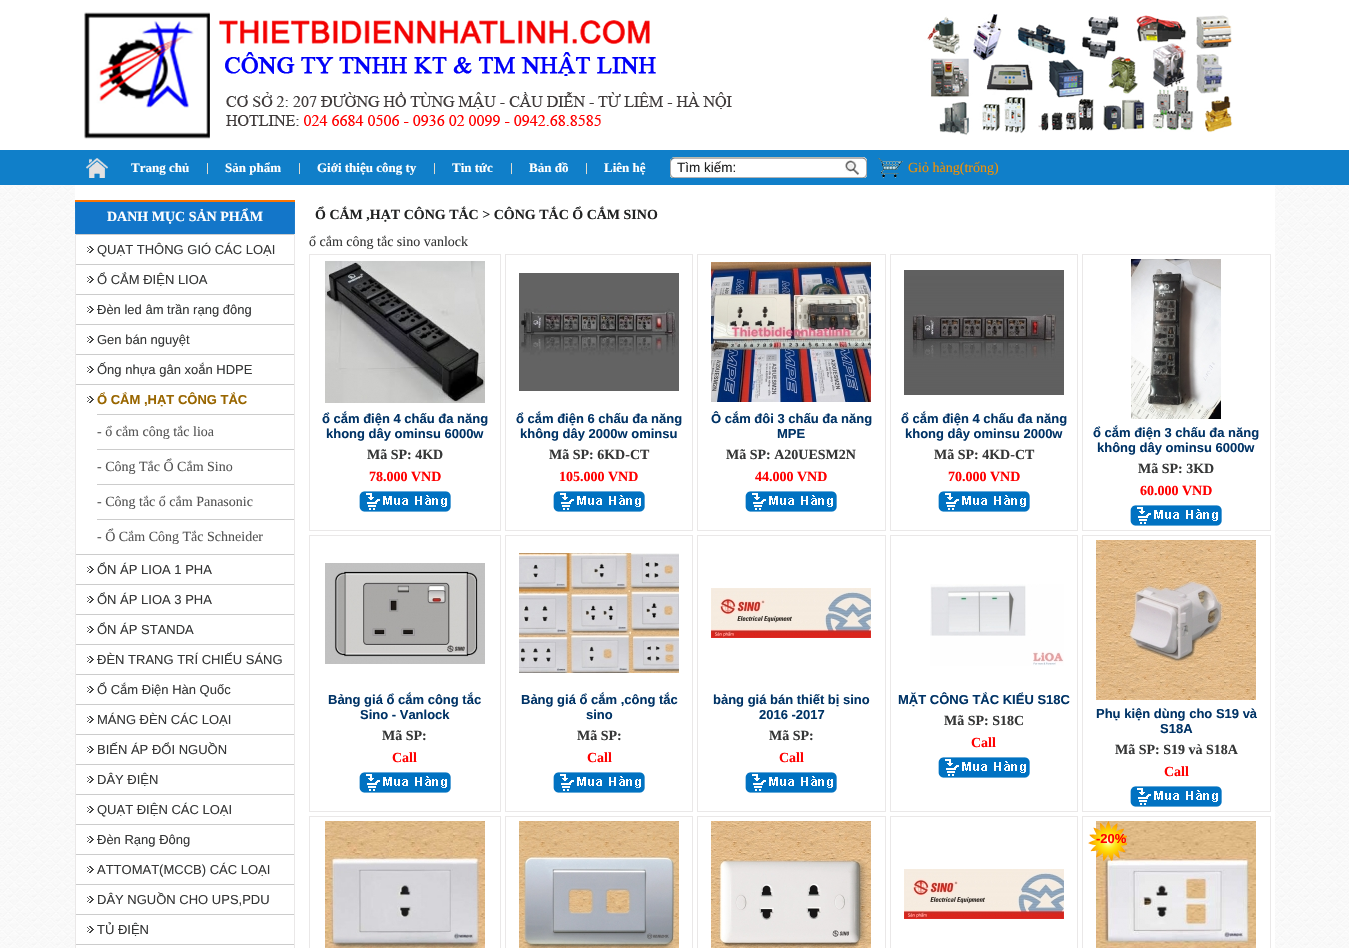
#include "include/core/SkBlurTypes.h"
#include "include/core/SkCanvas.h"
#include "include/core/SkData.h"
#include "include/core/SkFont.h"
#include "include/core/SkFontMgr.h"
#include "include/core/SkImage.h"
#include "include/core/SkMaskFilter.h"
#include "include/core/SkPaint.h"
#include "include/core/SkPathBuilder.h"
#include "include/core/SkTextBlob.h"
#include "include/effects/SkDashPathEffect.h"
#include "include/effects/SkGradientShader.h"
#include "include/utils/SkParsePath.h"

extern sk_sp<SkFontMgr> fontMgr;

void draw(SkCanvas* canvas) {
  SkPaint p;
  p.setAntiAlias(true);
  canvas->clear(SK_ColorWHITE);
  canvas->drawImageRect(SkImages::DeferredFromEncodedData(SkData::MakeFromFileName("images/1.png")), SkRect::MakeLTRB(0, 185, 1349, 948), SkSamplingOptions());
  canvas->drawImageRect(SkImages::DeferredFromEncodedData(SkData::MakeFromFileName("images/2.png")), SkRect::MakeLTRB(84, 12, 1233, 139), SkSamplingOptions());
  p.setColor(SkColorSetRGB(16, 127, 201));
  canvas->drawRect(SkRect::MakeLTRB(0, 150, 1349, 185), p);
  canvas->drawImageRect(SkImages::DeferredFromEncodedData(SkData::MakeFromFileName("images/3.png")), SkRect::MakeLTRB(86, 158, 108, 178), SkSamplingOptions());
  canvas->drawImageRect(SkImages::DeferredFromEncodedData(SkData::MakeFromFileName("images/4.png")), SkRect::MakeLTRB(207, 163, 208, 175), SkSamplingOptions());
  canvas->drawImageRect(SkImages::DeferredFromEncodedData(SkData::MakeFromFileName("images/4.png")), SkRect::MakeLTRB(299, 163, 300, 175), SkSamplingOptions());
  canvas->drawImageRect(SkImages::DeferredFromEncodedData(SkData::MakeFromFileName("images/4.png")), SkRect::MakeLTRB(434, 163, 435, 175), SkSamplingOptions());
  canvas->drawImageRect(SkImages::DeferredFromEncodedData(SkData::MakeFromFileName("images/4.png")), SkRect::MakeLTRB(511, 163, 512, 175), SkSamplingOptions());
  canvas->drawImageRect(SkImages::DeferredFromEncodedData(SkData::MakeFromFileName("images/4.png")), SkRect::MakeLTRB(586, 163, 587, 175), SkSamplingOptions());
  canvas->drawImageRect(SkImages::DeferredFromEncodedData(SkData::MakeFromFileName("images/5.png")), SkRect::MakeLTRB(670, 157, 840, 178), SkSamplingOptions());
  canvas->drawImageRect(SkImages::DeferredFromEncodedData(SkData::MakeFromFileName("images/6.png")), SkRect::MakeLTRB(840, 157, 867, 178), SkSamplingOptions());
  canvas->drawImageRect(SkImages::DeferredFromEncodedData(SkData::MakeFromFileName("images/7.png")), SkRect::MakeLTRB(878, 158, 903, 178), SkSamplingOptions());
  p.setColor(SK_ColorWHITE);
  canvas->drawRect(SkRect::MakeLTRB(75, 185, 1275, 948), p);
  canvas->drawImageRect(SkImages::DeferredFromEncodedData(SkData::MakeFromFileName("images/8.png")), SkRect::MakeLTRB(75, 200, 295, 234), SkSamplingOptions());
  p.setColor(SkColorSetRGB(234, 232, 232));
  canvas->drawPath(SkPathBuilder(SkPathFillType::kEvenOdd).moveTo(75, 234).lineTo(295, 234).lineTo(295, 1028).cubicTo(295, 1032, 292, 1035, 288, 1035).lineTo(82, 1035).cubicTo(78, 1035, 75, 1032, 75, 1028).close().moveTo(76, 234).lineTo(294, 234).lineTo(294, 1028).cubicTo(294, 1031, 291, 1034, 288, 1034).lineTo(82, 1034).cubicTo(79, 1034, 76, 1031, 76, 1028).close().detach(), p);
  p.setColor(SkColorSetRGB(204, 204, 204));
  canvas->drawRect(SkRect::MakeLTRB(76, 234, 294, 235), p);
  canvas->drawImageRect(SkImages::DeferredFromEncodedData(SkData::MakeFromFileName("images/9.png")), SkRect::MakeLTRB(87, 246, 94, 253), SkSamplingOptions());
  canvas->drawRect(SkRect::MakeLTRB(76, 264, 294, 265), p);
  canvas->drawImageRect(SkImages::DeferredFromEncodedData(SkData::MakeFromFileName("images/9.png")), SkRect::MakeLTRB(87, 276, 94, 283), SkSamplingOptions());
  canvas->drawRect(SkRect::MakeLTRB(76, 294, 294, 295), p);
  canvas->drawImageRect(SkImages::DeferredFromEncodedData(SkData::MakeFromFileName("images/9.png")), SkRect::MakeLTRB(87, 306, 94, 313), SkSamplingOptions());
  canvas->drawRect(SkRect::MakeLTRB(76, 324, 294, 325), p);
  canvas->drawImageRect(SkImages::DeferredFromEncodedData(SkData::MakeFromFileName("images/9.png")), SkRect::MakeLTRB(87, 336, 94, 343), SkSamplingOptions());
  canvas->drawRect(SkRect::MakeLTRB(76, 354, 294, 355), p);
  canvas->drawImageRect(SkImages::DeferredFromEncodedData(SkData::MakeFromFileName("images/9.png")), SkRect::MakeLTRB(87, 366, 94, 373), SkSamplingOptions());
  canvas->drawRect(SkRect::MakeLTRB(76, 384, 294, 385), p);
  canvas->drawImageRect(SkImages::DeferredFromEncodedData(SkData::MakeFromFileName("images/9.png")), SkRect::MakeLTRB(87, 396, 94, 403), SkSamplingOptions());
  canvas->drawRect(SkRect::MakeLTRB(97, 414, 294, 415), p);
  canvas->drawRect(SkRect::MakeLTRB(97, 449, 294, 450), p);
  canvas->drawRect(SkRect::MakeLTRB(97, 484, 294, 485), p);
  canvas->drawRect(SkRect::MakeLTRB(97, 519, 294, 520), p);
  canvas->drawRect(SkRect::MakeLTRB(76, 554, 294, 555), p);
  canvas->drawImageRect(SkImages::DeferredFromEncodedData(SkData::MakeFromFileName("images/9.png")), SkRect::MakeLTRB(87, 566, 94, 573), SkSamplingOptions());
  canvas->drawRect(SkRect::MakeLTRB(76, 584, 294, 585), p);
  canvas->drawImageRect(SkImages::DeferredFromEncodedData(SkData::MakeFromFileName("images/9.png")), SkRect::MakeLTRB(87, 596, 94, 603), SkSamplingOptions());
  canvas->drawRect(SkRect::MakeLTRB(76, 614, 294, 615), p);
  canvas->drawImageRect(SkImages::DeferredFromEncodedData(SkData::MakeFromFileName("images/9.png")), SkRect::MakeLTRB(87, 626, 94, 633), SkSamplingOptions());
  canvas->drawRect(SkRect::MakeLTRB(76, 644, 294, 645), p);
  canvas->drawImageRect(SkImages::DeferredFromEncodedData(SkData::MakeFromFileName("images/9.png")), SkRect::MakeLTRB(87, 656, 94, 663), SkSamplingOptions());
  canvas->drawRect(SkRect::MakeLTRB(76, 674, 294, 675), p);
  canvas->drawImageRect(SkImages::DeferredFromEncodedData(SkData::MakeFromFileName("images/9.png")), SkRect::MakeLTRB(87, 686, 94, 693), SkSamplingOptions());
  canvas->drawRect(SkRect::MakeLTRB(76, 704, 294, 705), p);
  canvas->drawImageRect(SkImages::DeferredFromEncodedData(SkData::MakeFromFileName("images/9.png")), SkRect::MakeLTRB(87, 716, 94, 723), SkSamplingOptions());
  canvas->drawRect(SkRect::MakeLTRB(76, 734, 294, 735), p);
  canvas->drawImageRect(SkImages::DeferredFromEncodedData(SkData::MakeFromFileName("images/9.png")), SkRect::MakeLTRB(87, 746, 94, 753), SkSamplingOptions());
  canvas->drawRect(SkRect::MakeLTRB(76, 764, 294, 765), p);
  canvas->drawImageRect(SkImages::DeferredFromEncodedData(SkData::MakeFromFileName("images/9.png")), SkRect::MakeLTRB(87, 776, 94, 783), SkSamplingOptions());
  canvas->drawRect(SkRect::MakeLTRB(76, 794, 294, 795), p);
  canvas->drawImageRect(SkImages::DeferredFromEncodedData(SkData::MakeFromFileName("images/9.png")), SkRect::MakeLTRB(87, 806, 94, 813), SkSamplingOptions());
  canvas->drawRect(SkRect::MakeLTRB(76, 824, 294, 825), p);
  canvas->drawImageRect(SkImages::DeferredFromEncodedData(SkData::MakeFromFileName("images/9.png")), SkRect::MakeLTRB(87, 836, 94, 843), SkSamplingOptions());
  canvas->drawRect(SkRect::MakeLTRB(76, 854, 294, 855), p);
  canvas->drawImageRect(SkImages::DeferredFromEncodedData(SkData::MakeFromFileName("images/9.png")), SkRect::MakeLTRB(87, 866, 94, 873), SkSamplingOptions());
  canvas->drawRect(SkRect::MakeLTRB(76, 884, 294, 885), p);
  canvas->drawImageRect(SkImages::DeferredFromEncodedData(SkData::MakeFromFileName("images/9.png")), SkRect::MakeLTRB(87, 896, 94, 903), SkSamplingOptions());
  canvas->drawRect(SkRect::MakeLTRB(76, 914, 294, 915), p);
  canvas->drawImageRect(SkImages::DeferredFromEncodedData(SkData::MakeFromFileName("images/9.png")), SkRect::MakeLTRB(87, 926, 94, 933), SkSamplingOptions());
  canvas->drawRect(SkRect::MakeLTRB(76, 944, 294, 945), p);
  p.setStyle(SkPaint::kStroke_Style);
  p.setStrokeWidth(1);
  p.setColor(SkColorSetRGB(234, 232, 232));
  canvas->drawRect(SkRect::MakeLTRB(309.5f, 254.5f, 500.5f, 530.5f), p);
  canvas->drawImageRect(SkImages::DeferredFromEncodedData(SkData::MakeFromFileName("images/10.png")), SkRect::MakeLTRB(325, 261, 485, 403), SkSamplingOptions());
  canvas->drawImageRect(SkImages::DeferredFromEncodedData(SkData::MakeFromFileName("images/11.png")), SkRect::MakeLTRB(359, 491, 451, 512), SkSamplingOptions());
  canvas->drawRect(SkRect::MakeLTRB(505.5f, 254.5f, 692.5f, 530.5f), p);
  canvas->drawImageRect(SkImages::DeferredFromEncodedData(SkData::MakeFromFileName("images/12.png")), SkRect::MakeLTRB(519, 273, 679, 391), SkSamplingOptions());
  canvas->drawImageRect(SkImages::DeferredFromEncodedData(SkData::MakeFromFileName("images/11.png")), SkRect::MakeLTRB(553, 491, 645, 512), SkSamplingOptions());
  canvas->drawRect(SkRect::MakeLTRB(697.5f, 254.5f, 885.5f, 530.5f), p);
  canvas->drawImageRect(SkImages::DeferredFromEncodedData(SkData::MakeFromFileName("images/13.png")), SkRect::MakeLTRB(711, 262, 871, 402), SkSamplingOptions());
  canvas->drawImageRect(SkImages::DeferredFromEncodedData(SkData::MakeFromFileName("images/11.png")), SkRect::MakeLTRB(745, 491, 837, 512), SkSamplingOptions());
  canvas->drawRect(SkRect::MakeLTRB(890.5f, 254.5f, 1077.5f, 530.5f), p);
  canvas->drawImageRect(SkImages::DeferredFromEncodedData(SkData::MakeFromFileName("images/14.png")), SkRect::MakeLTRB(904, 270, 1064, 395), SkSamplingOptions());
  canvas->drawImageRect(SkImages::DeferredFromEncodedData(SkData::MakeFromFileName("images/11.png")), SkRect::MakeLTRB(938, 491, 1030, 512), SkSamplingOptions());
  canvas->drawRect(SkRect::MakeLTRB(1082.5f, 254.5f, 1270.5f, 530.5f), p);
  canvas->drawImageRect(SkImages::DeferredFromEncodedData(SkData::MakeFromFileName("images/15.png")), SkRect::MakeLTRB(1131, 259, 1221, 419), SkSamplingOptions());
  canvas->drawImageRect(SkImages::DeferredFromEncodedData(SkData::MakeFromFileName("images/11.png")), SkRect::MakeLTRB(1130, 505, 1222, 526), SkSamplingOptions());
  canvas->drawRect(SkRect::MakeLTRB(309.5f, 535.5f, 500.5f, 811.5f), p);
  canvas->drawImageRect(SkImages::DeferredFromEncodedData(SkData::MakeFromFileName("images/16.png")), SkRect::MakeLTRB(325, 563, 485, 664), SkSamplingOptions());
  canvas->drawImageRect(SkImages::DeferredFromEncodedData(SkData::MakeFromFileName("images/11.png")), SkRect::MakeLTRB(359, 772, 451, 793), SkSamplingOptions());
  canvas->drawRect(SkRect::MakeLTRB(505.5f, 535.5f, 692.5f, 811.5f), p);
  canvas->drawImageRect(SkImages::DeferredFromEncodedData(SkData::MakeFromFileName("images/17.png")), SkRect::MakeLTRB(519, 553, 679, 673), SkSamplingOptions());
  canvas->drawImageRect(SkImages::DeferredFromEncodedData(SkData::MakeFromFileName("images/11.png")), SkRect::MakeLTRB(553, 772, 645, 793), SkSamplingOptions());
  canvas->drawRect(SkRect::MakeLTRB(697.5f, 535.5f, 885.5f, 811.5f), p);
  canvas->drawImageRect(SkImages::DeferredFromEncodedData(SkData::MakeFromFileName("images/18.png")), SkRect::MakeLTRB(711, 588, 871, 638), SkSamplingOptions());
  canvas->drawImageRect(SkImages::DeferredFromEncodedData(SkData::MakeFromFileName("images/11.png")), SkRect::MakeLTRB(745, 772, 837, 793), SkSamplingOptions());
  canvas->drawRect(SkRect::MakeLTRB(890.5f, 535.5f, 1077.5f, 811.5f), p);
  canvas->drawImageRect(SkImages::DeferredFromEncodedData(SkData::MakeFromFileName("images/19.png")), SkRect::MakeLTRB(930, 584, 1064, 666), SkSamplingOptions());
  canvas->drawImageRect(SkImages::DeferredFromEncodedData(SkData::MakeFromFileName("images/11.png")), SkRect::MakeLTRB(938, 757, 1030, 778), SkSamplingOptions());
  canvas->drawRect(SkRect::MakeLTRB(1082.5f, 535.5f, 1270.5f, 811.5f), p);
  canvas->drawImageRect(SkImages::DeferredFromEncodedData(SkData::MakeFromFileName("images/20.png")), SkRect::MakeLTRB(1096, 540, 1256, 700), SkSamplingOptions());
  canvas->drawImageRect(SkImages::DeferredFromEncodedData(SkData::MakeFromFileName("images/11.png")), SkRect::MakeLTRB(1130, 786, 1222, 807), SkSamplingOptions());
  canvas->drawRect(SkRect::MakeLTRB(309.5f, 816.5f, 500.5f, 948.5f), p);
  canvas->drawImageRect(SkImages::DeferredFromEncodedData(SkData::MakeFromFileName("images/21.png")), SkRect::MakeLTRB(325, 821, 485, 948), SkSamplingOptions());
  canvas->drawRect(SkRect::MakeLTRB(505.5f, 816.5f, 692.5f, 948.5f), p);
  canvas->drawImageRect(SkImages::DeferredFromEncodedData(SkData::MakeFromFileName("images/22.png")), SkRect::MakeLTRB(519, 821, 679, 948), SkSamplingOptions());
  canvas->drawRect(SkRect::MakeLTRB(697.5f, 816.5f, 885.5f, 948.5f), p);
  canvas->drawImageRect(SkImages::DeferredFromEncodedData(SkData::MakeFromFileName("images/23.png")), SkRect::MakeLTRB(711, 821, 871, 948), SkSamplingOptions());
  canvas->drawRect(SkRect::MakeLTRB(890.5f, 816.5f, 1077.5f, 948.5f), p);
  canvas->drawImageRect(SkImages::DeferredFromEncodedData(SkData::MakeFromFileName("images/18.png")), SkRect::MakeLTRB(904, 869, 1064, 919), SkSamplingOptions());
  canvas->drawRect(SkRect::MakeLTRB(1082.5f, 816.5f, 1270.5f, 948.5f), p);
  canvas->drawImageRect(SkImages::DeferredFromEncodedData(SkData::MakeFromFileName("images/24.png")), SkRect::MakeLTRB(1096, 821, 1256, 948), SkSamplingOptions());
  canvas->drawImageRect(SkImages::DeferredFromEncodedData(SkData::MakeFromFileName("images/25.png")), SkRect::MakeLTRB(1088, 821, 1127, 861), SkSamplingOptions());
  SkFont font1(fontMgr->matchFamilyStyle("Liberation Serif", SkFontStyle::Bold()), 13);
  font1.setSubpixel(true);
  p.setStyle(SkPaint::kFill_Style);
  p.setColor(SK_ColorWHITE);
  canvas->drawString("Trang chủ", 131, 172, font1, p);
  canvas->drawString("Sản phẩm", 225, 172, font1, p);
  canvas->drawString("Giới thiệu công ty", 317, 172, font1, p);
  canvas->drawString("Tin tức", 452, 172, font1, p);
  canvas->drawString("Bản đồ", 529, 172, font1, p);
  canvas->drawString("Liên hệ", 604, 172, font1, p);
  SkFont font2(fontMgr->matchFamilyStyle("Liberation Sans", SkFontStyle::Normal()), 13.5f);
  font2.setSubpixel(true);
  p.setColor(SkColorSetRGB(34, 35, 35));
  canvas->drawString("Tìm kiếm:", 677, 172, font2, p);
  SkFont font3(fontMgr->matchFamilyStyle("Liberation Serif", SkFontStyle::Normal()), 14);
  font3.setSubpixel(true);
  p.setColor(SkColorSetRGB(246, 145, 0));
  canvas->drawString("Giỏ hàng(trống)", 908, 172, font3, p);
  SkFont font4(fontMgr->matchFamilyStyle("Liberation Serif", SkFontStyle::Bold()), 14);
  font4.setSubpixel(true);
  p.setColor(SK_ColorWHITE);
  canvas->drawString("DANH MỤC SẢN PHẨM", 107, 221, font4, p);
  SkFont font5(fontMgr->matchFamilyStyle("Liberation Sans", SkFontStyle::Normal()), 13);
  font5.setSubpixel(true);
  p.setColor(SkColorSetRGB(54, 55, 55));
  canvas->drawString("QUẠT THÔNG GIÓ CÁC LOẠI", 97, 254, font5, p);
  canvas->drawString("Ổ CẮM ĐIỆN LIOA", 97, 284, font5, p);
  canvas->drawString("Đèn led âm trần rạng đông", 97, 314, font5, p);
  canvas->drawString("Gen bán nguyệt", 97, 344, font5, p);
  canvas->drawString("Ống nhựa gân xoắn HDPE", 97, 374, font5, p);
  SkFont font6(fontMgr->matchFamilyStyle("Liberation Sans", SkFontStyle::Bold()), 13);
  font6.setSubpixel(true);
  p.setColor(SkColorSetRGB(153, 102, 0));
  canvas->drawString("Ổ CẮM ,HẠT CÔNG TẮC", 97, 404, font6, p);
  p.setColor(SkColorSetRGB(84, 84, 84));
  canvas->drawString("- ổ cắm công tắc lioa", 97, 436, font3, p);
  canvas->drawString("- Công Tắc Ổ Cắm Sino", 97, 471, font3, p);
  canvas->drawString("- Công tắc ổ cắm Panasonic", 97, 506, font3, p);
  canvas->drawString("- Ổ Cắm Công Tắc Schneider", 97, 541, font3, p);
  p.setColor(SkColorSetRGB(54, 55, 55));
  canvas->drawString("ỔN ÁP LIOA 1 PHA", 97, 574, font5, p);
  canvas->drawString("ỔN ÁP LIOA 3 PHA", 97, 604, font5, p);
  canvas->drawString("ỔN ÁP STANDA", 97, 634, font5, p);
  canvas->drawString("ĐÈN TRANG TRÍ CHIẾU SÁNG", 97, 664, font5, p);
  canvas->drawString("Ổ Cắm Điện Hàn Quốc", 97, 694, font5, p);
  canvas->drawString("MÁNG ĐÈN CÁC LOẠI", 97, 724, font5, p);
  canvas->drawString("BIẾN ÁP ĐỔI NGUỒN", 97, 754, font5, p);
  canvas->drawString("DÂY ĐIỆN", 97, 784, font5, p);
  canvas->drawString("QUẠT ĐIỆN CÁC LOẠI", 97, 814, font5, p);
  canvas->drawString("Đèn Rạng Đông", 97, 844, font5, p);
  canvas->drawString("ATTOMAT(MCCB) CÁC LOẠI", 97, 874, font5, p);
  canvas->drawString("DÂY NGUỒN CHO UPS,PDU", 97, 904, font5, p);
  canvas->drawString("TỦ ĐIỆN", 97, 934, font5, p);
  p.setColor(SkColorSetRGB(34, 35, 35));
  canvas->drawString("Ổ CẮM ,HẠT CÔNG TẮC > CÔNG TẮC Ổ CẮM SINO", 315, 219, font4, p);
  p.setColor(SkColorSetRGB(54, 55, 55));
  canvas->drawString("ổ cắm công tắc sino vanlock", 309, 246, font3, p);
  p.setColor(SkColorSetRGB(0, 51, 102));
  canvas->drawString("ổ cắm điện 4 chấu đa năng", 322, 423, font6, p);
  canvas->drawString("khong dây ominsu 6000w", 326, 438, font6, p);
  p.setColor(SkColorSetRGB(54, 55, 55));
  canvas->drawString("Mã SP: 4KD", 367, 459, font4, p);
  p.setColor(SkColorSetRGB(255, 0, 0));
  canvas->drawString("78.000 VND", 369, 481, font4, p);
  p.setColor(SkColorSetRGB(0, 51, 102));
  canvas->drawString("ổ cắm điện 6 chấu đa năng", 516, 423, font6, p);
  canvas->drawString("không dây 2000w ominsu", 520, 438, font6, p);
  p.setColor(SkColorSetRGB(54, 55, 55));
  canvas->drawString("Mã SP: 6KD-CT", 549, 459, font4, p);
  p.setColor(SkColorSetRGB(255, 0, 0));
  canvas->drawString("105.000 VND", 559, 481, font4, p);
  p.setColor(SkColorSetRGB(0, 51, 102));
  canvas->drawString("Ô cắm đôi 3 chấu đa năng", 711, 423, font6, p);
  canvas->drawString("MPE", 777, 438, font6, p);
  p.setColor(SkColorSetRGB(54, 55, 55));
  canvas->drawString("Mã SP: A20UESM2N", 726, 459, font4, p);
  p.setColor(SkColorSetRGB(255, 0, 0));
  canvas->drawString("44.000 VND", 755, 481, font4, p);
  p.setColor(SkColorSetRGB(0, 51, 102));
  canvas->drawString("ổ cắm điện 4 chấu đa năng", 901, 423, font6, p);
  canvas->drawString("khong dây ominsu 2000w", 905, 438, font6, p);
  p.setColor(SkColorSetRGB(54, 55, 55));
  canvas->drawString("Mã SP: 4KD-CT", 934, 459, font4, p);
  p.setColor(SkColorSetRGB(255, 0, 0));
  canvas->drawString("70.000 VND", 948, 481, font4, p);
  p.setColor(SkColorSetRGB(0, 51, 102));
  canvas->drawString("ổ cắm điện 3 chấu đa năng", 1093, 437, font6, p);
  canvas->drawString("không dây ominsu 6000w", 1097, 452, font6, p);
  p.setColor(SkColorSetRGB(54, 55, 55));
  canvas->drawString("Mã SP: 3KD", 1138, 473, font4, p);
  p.setColor(SkColorSetRGB(255, 0, 0));
  canvas->drawString("60.000 VND", 1140, 495, font4, p);
  p.setColor(SkColorSetRGB(0, 51, 102));
  canvas->drawString("Bảng giá ổ cắm công tắc", 328, 704, font6, p);
  canvas->drawString("Sino - Vanlock", 360, 719, font6, p);
  p.setColor(SkColorSetRGB(54, 55, 55));
  canvas->drawString("Mã SP:", 382, 740, font4, p);
  p.setColor(SkColorSetRGB(255, 0, 0));
  canvas->drawString("Call", 392, 762, font4, p);
  p.setColor(SkColorSetRGB(0, 51, 102));
  canvas->drawString("Bảng giá ổ cắm ,công tắc", 521, 704, font6, p);
  canvas->drawString("sino", 586, 719, font6, p);
  p.setColor(SkColorSetRGB(54, 55, 55));
  canvas->drawString("Mã SP:", 577, 740, font4, p);
  p.setColor(SkColorSetRGB(255, 0, 0));
  canvas->drawString("Call", 587, 762, font4, p);
  p.setColor(SkColorSetRGB(0, 51, 102));
  canvas->drawString("bảng giá bán thiết bị sino", 713, 704, font6, p);
  canvas->drawString("2016 -2017", 759, 719, font6, p);
  p.setColor(SkColorSetRGB(54, 55, 55));
  canvas->drawString("Mã SP:", 769, 740, font4, p);
  p.setColor(SkColorSetRGB(255, 0, 0));
  canvas->drawString("Call", 779, 762, font4, p);
  p.setColor(SkColorSetRGB(0, 51, 102));
  canvas->drawString("MẶT CÔNG TẮC KIỂU S18C", 898, 704, font6, p);
  p.setColor(SkColorSetRGB(54, 55, 55));
  canvas->drawString("Mã SP: S18C", 944, 725, font4, p);
  p.setColor(SkColorSetRGB(255, 0, 0));
  canvas->drawString("Call", 971, 747, font4, p);
  p.setColor(SkColorSetRGB(0, 51, 102));
  canvas->drawString("Phụ kiện dùng cho S19 và", 1096, 718, font6, p);
  canvas->drawString("S18A", 1160, 733, font6, p);
  p.setColor(SkColorSetRGB(54, 55, 55));
  canvas->drawString("Mã SP: S19 và S18A", 1115, 754, font4, p);
  p.setColor(SkColorSetRGB(255, 0, 0));
  canvas->drawString("Call", 1164, 776, font4, p);
  canvas->drawString("-20%", 1096, 843, font6, p);
}
